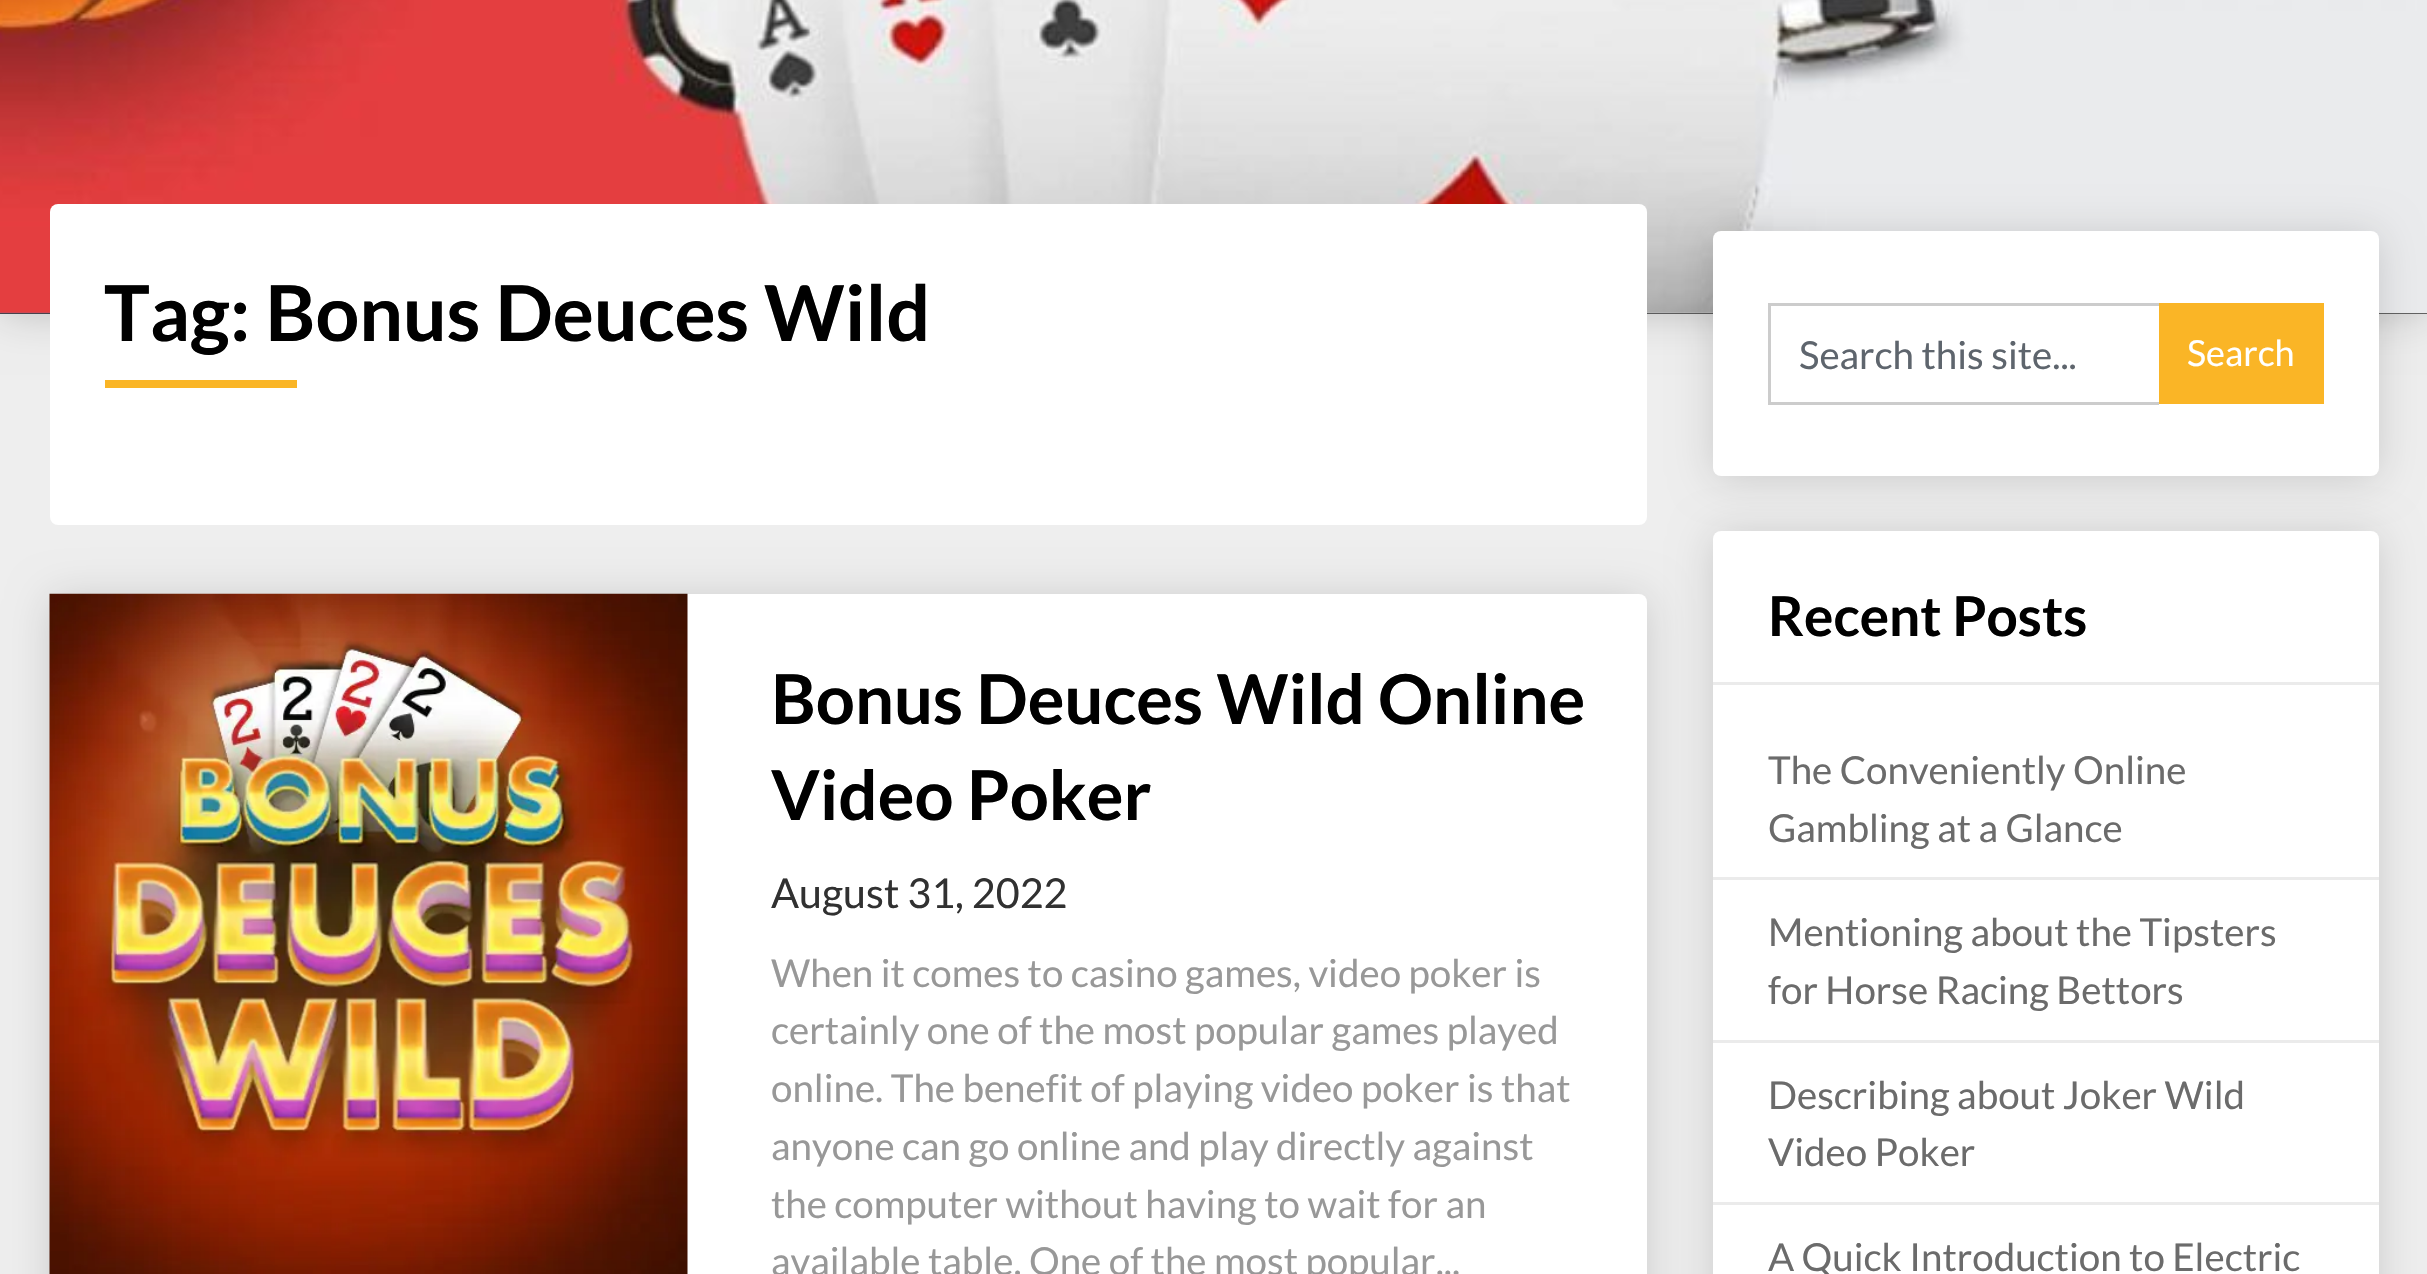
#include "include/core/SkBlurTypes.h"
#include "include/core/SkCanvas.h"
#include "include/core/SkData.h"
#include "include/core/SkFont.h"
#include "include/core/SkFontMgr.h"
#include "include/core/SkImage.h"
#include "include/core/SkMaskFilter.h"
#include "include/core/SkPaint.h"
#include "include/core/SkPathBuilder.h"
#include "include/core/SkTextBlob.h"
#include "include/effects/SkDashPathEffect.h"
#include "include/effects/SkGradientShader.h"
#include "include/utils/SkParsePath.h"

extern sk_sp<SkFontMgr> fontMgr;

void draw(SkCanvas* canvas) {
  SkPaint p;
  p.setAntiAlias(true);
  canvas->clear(SkColorSetRGB(238, 238, 238));
  p.setColor(SkColorSetARGB(51, 0, 0, 0));
  p.setMaskFilter(SkMaskFilter::MakeBlur(kNormal_SkBlurStyle, 20.5f));
  canvas->drawRect(SkRect::MakeLTRB(0, -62, 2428, 314), p);
  p.setMaskFilter(nullptr);
  p.setColor(SkColorSetRGB(51, 51, 51));
  canvas->drawRect(SkRect::MakeLTRB(0, 313, 2427, 314), p);
  canvas->drawImageRect(SkImages::DeferredFromEncodedData(SkData::MakeFromFileName("images/1.png")), SkRect::MakeLTRB(0, 0, 2427, 314), SkSamplingOptions());
  p.setColor(SK_ColorWHITE);
  canvas->drawRoundRect(SkRect::MakeLTRB(50, 204, 1647, 525), 8, 8, p);
  p.setColor(SkColorSetRGB(250, 181, 38));
  canvas->drawRect(SkRect::MakeLTRB(105, 380, 297, 388), p);
  p.setColor(SkColorSetARGB(38, 0, 0, 0));
  p.setMaskFilter(SkMaskFilter::MakeBlur(kNormal_SkBlurStyle, 20.5f));
  canvas->drawRoundRect(SkRect::MakeLTRB(50, 597, 1647, 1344), 8, 8, p);
  p.setMaskFilter(nullptr);
  p.setColor(SK_ColorWHITE);
  canvas->drawRoundRect(SkRect::MakeLTRB(50, 594, 1647, 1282), 8, 8, p);
  canvas->drawImageRect(SkImages::DeferredFromEncodedData(SkData::MakeFromFileName("images/2.png")), SkRect::MakeLTRB(49, 593, 688, 1274), SkSamplingOptions());
  p.setColor(SkColorSetARGB(38, 0, 0, 0));
  p.setMaskFilter(SkMaskFilter::MakeBlur(kNormal_SkBlurStyle, 20.5f));
  canvas->drawRoundRect(SkRect::MakeLTRB(1713, 234, 2379, 479), 8, 8, p);
  p.setMaskFilter(nullptr);
  p.setColor(SK_ColorWHITE);
  canvas->drawRoundRect(SkRect::MakeLTRB(1713, 231, 2379, 476), 8, 8, p);
  p.setColor(SkColorSetRGB(204, 204, 204));
  canvas->drawRect(SkRect::MakeLTRB(1768, 303, 2159, 306), p);
  canvas->drawRect(SkRect::MakeLTRB(1768, 402, 2159, 405), p);
  canvas->drawRect(SkRect::MakeLTRB(1768, 303, 1771, 404), p);
  p.setColor(SkColorSetRGB(250, 181, 38));
  canvas->drawRect(SkRect::MakeLTRB(2159, 303, 2324, 404), p);
  p.setColor(SkColorSetARGB(38, 0, 0, 0));
  p.setMaskFilter(SkMaskFilter::MakeBlur(kNormal_SkBlurStyle, 20.5f));
  canvas->drawRoundRect(SkRect::MakeLTRB(1713, 534, 2379, 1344), 8, 8, p);
  p.setMaskFilter(nullptr);
  p.setColor(SK_ColorWHITE);
  canvas->drawRoundRect(SkRect::MakeLTRB(1713, 531, 2379, 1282), 8, 8, p);
  p.setColor(SkColorSetRGB(235, 235, 235));
  canvas->drawRect(SkRect::MakeLTRB(1713, 682, 2379, 685), p);
  canvas->drawRect(SkRect::MakeLTRB(1713, 877, 2379, 880), p);
  canvas->drawRect(SkRect::MakeLTRB(1713, 1040, 2379, 1043), p);
  canvas->drawRect(SkRect::MakeLTRB(1713, 1202, 2379, 1205), p);
  SkFont font1(fontMgr->matchFamilyStyle("Lato", SkFontStyle::Bold()), 77);
  font1.setSubpixel(true);
  p.setColor(SK_ColorBLACK);
  canvas->drawString("Tag: Bonus Deuces Wild", 104, 341, font1, p);
  SkFont font2(fontMgr->matchFamilyStyle("Lato", SkFontStyle::Bold()), 68.75f);
  font2.setSubpixel(true);
  canvas->drawString("Bonus Deuces Wild Online", 771, 724, font2, p);
  canvas->drawString("Video Poker", 771, 820, font2, p);
  SkFont font3(fontMgr->matchFamilyStyle("Lato", SkFontStyle::Normal()), 41.25f);
  font3.setSubpixel(true);
  p.setColor(SkColorSetRGB(49, 49, 49));
  canvas->drawString("August 31, 2022", 771, 908, font3, p);
  SkFont font4(fontMgr->matchFamilyStyle("Lato", SkFontStyle::Normal()), 38.5f);
  font4.setSubpixel(true);
  p.setColor(SkColorSetRGB(152, 152, 152));
  canvas->drawString("When it comes to casino games, video poker is", 771, 987, font4, p);
  canvas->drawString("certainly one of the most popular games played", 771, 1044, font4, p);
  canvas->drawString("online. The benefit of playing video poker is that", 771, 1102, font4, p);
  canvas->drawString("anyone can go online and play directly against", 771, 1160, font4, p);
  canvas->drawString("the computer without having to wait for an", 771, 1218, font4, p);
  canvas->drawString("available table. One of the most popular...", 771, 1275, font4, p);
  p.setColor(SkColorSetRGB(94, 101, 109));
  canvas->drawString("Search this site...", 1799, 369, font4, p);
  SkFont font5(fontMgr->matchFamilyStyle("Lato", SkFontStyle::Normal()), 36);
  font5.setSubpixel(true);
  p.setColor(SK_ColorWHITE);
  canvas->drawString("Search", 2187, 366, font5, p);
  SkFont font6(fontMgr->matchFamilyStyle("Lato", SkFontStyle::Bold()), 55);
  font6.setSubpixel(true);
  p.setColor(SK_ColorBLACK);
  canvas->drawString("Recent Posts", 1768, 636, font6, p);
  p.setColor(SkColorSetRGB(107, 107, 107));
  canvas->drawString("The Conveniently Online", 1768, 784, font4, p);
  canvas->drawString("Gambling at a Glance", 1768, 842, font4, p);
  canvas->drawString("Mentioning about the Tipsters", 1768, 946, font4, p);
  canvas->drawString("for Horse Racing Bettors", 1768, 1004, font4, p);
  canvas->drawString("Describing about Joker Wild", 1768, 1109, font4, p);
  canvas->drawString("Video Poker", 1768, 1166, font4, p);
  canvas->drawString("A Quick Introduction to Electric", 1768, 1271, font4, p);
}
